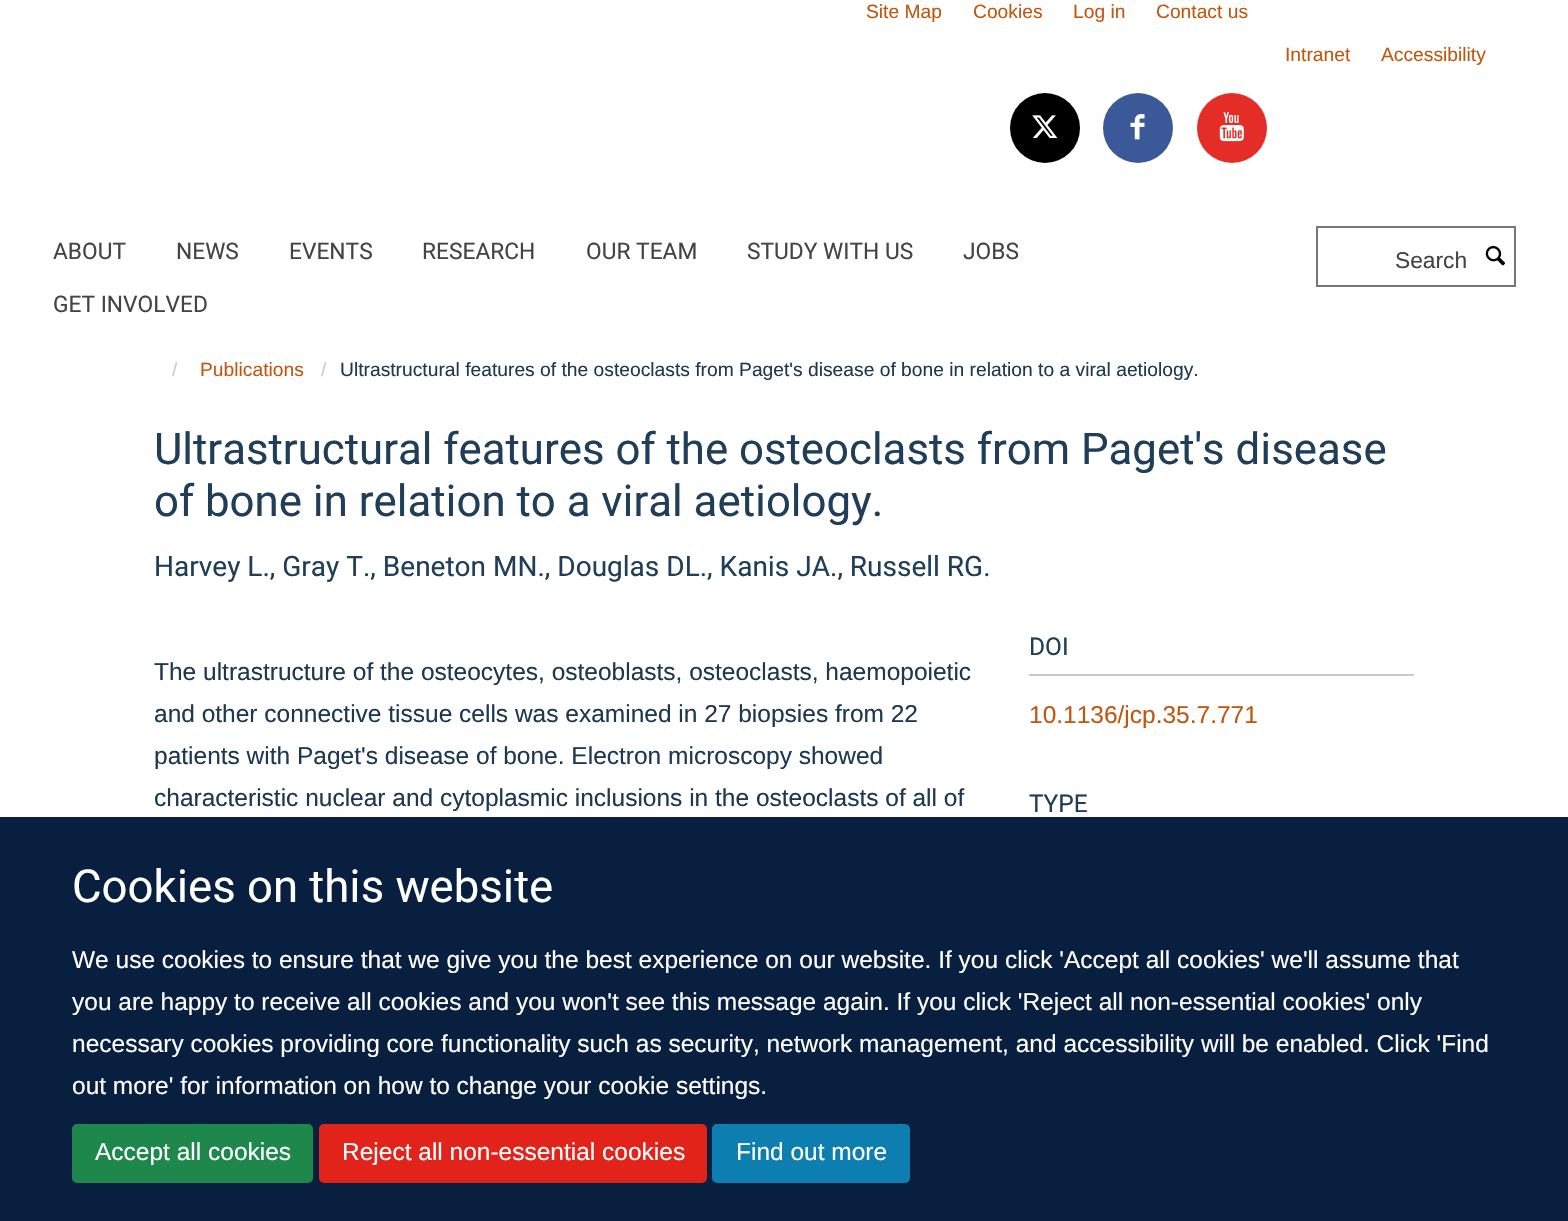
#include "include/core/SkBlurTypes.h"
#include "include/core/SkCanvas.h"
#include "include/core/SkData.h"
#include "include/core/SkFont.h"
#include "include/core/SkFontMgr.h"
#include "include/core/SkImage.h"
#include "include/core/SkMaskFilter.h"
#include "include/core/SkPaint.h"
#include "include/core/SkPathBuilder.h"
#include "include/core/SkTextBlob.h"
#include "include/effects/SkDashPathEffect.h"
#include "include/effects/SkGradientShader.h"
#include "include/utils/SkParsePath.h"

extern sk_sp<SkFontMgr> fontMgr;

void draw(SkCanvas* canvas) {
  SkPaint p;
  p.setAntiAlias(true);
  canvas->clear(SK_ColorWHITE);
  p.setColor(SK_ColorBLACK);
  canvas->drawCircle(1045, 128, 35, p);
  canvas->drawImageRect(SkImages::DeferredFromEncodedData(SkData::MakeFromFileName("images/1.png")), SkRect::MakeLTRB(1032, 115, 1058, 139), SkSamplingOptions());
  p.setColor(SkColorSetRGB(59, 89, 152));
  canvas->drawCircle(1138, 128, 35, p);
  canvas->drawImageRect(SkImages::DeferredFromEncodedData(SkData::MakeFromFileName("images/2.png")), SkRect::MakeLTRB(1130, 114, 1145, 140), SkSamplingOptions());
  p.setColor(SkColorSetRGB(229, 45, 39));
  canvas->drawCircle(1232, 128, 35, p);
  canvas->drawImageRect(SkImages::DeferredFromEncodedData(SkData::MakeFromFileName("images/3.png")), SkRect::MakeLTRB(1219, 112, 1244, 142), SkSamplingOptions());
  p.setStyle(SkPaint::kStroke_Style);
  p.setStrokeWidth(2);
  p.setColor(SkColorSetRGB(119, 119, 119));
  canvas->drawRect(SkRect::MakeLTRB(1317, 227, 1515, 286), p);
  canvas->drawImageRect(SkImages::DeferredFromEncodedData(SkData::MakeFromFileName("images/4.png")), SkRect::MakeLTRB(1485, 246, 1505, 266), SkSamplingOptions());
  p.setStyle(SkPaint::kFill_Style);
  p.setColor(SkColorSetRGB(198, 202, 207));
  canvas->drawRect(SkRect::MakeLTRB(1029, 674, 1414, 676), p);
  p.setColor(SkColorSetRGB(9, 31, 64));
  canvas->drawRect(SkRect::MakeLTRB(0, 817, 1568, 1221), p);
  p.setColor(SkColorSetRGB(30, 135, 75));
  canvas->drawRoundRect(SkRect::MakeLTRB(73, 1125, 312, 1182), 4, 4, p);
  p.setStyle(SkPaint::kStroke_Style);
  canvas->drawRoundRect(SkRect::MakeLTRB(73, 1125, 312, 1182), 4, 4, p);
  p.setStyle(SkPaint::kFill_Style);
  p.setColor(SkColorSetRGB(226, 35, 26));
  canvas->drawRoundRect(SkRect::MakeLTRB(320, 1125, 706, 1182), 4, 4, p);
  p.setStyle(SkPaint::kStroke_Style);
  canvas->drawRoundRect(SkRect::MakeLTRB(320, 1125, 706, 1182), 4, 4, p);
  p.setStyle(SkPaint::kFill_Style);
  p.setColor(SkColorSetRGB(13, 126, 176));
  canvas->drawRoundRect(SkRect::MakeLTRB(713, 1125, 909, 1182), 4, 4, p);
  p.setStyle(SkPaint::kStroke_Style);
  canvas->drawRoundRect(SkRect::MakeLTRB(713, 1125, 909, 1182), 4, 4, p);
  SkFont font1(fontMgr->matchFamilyStyle("Liberation Sans", SkFontStyle::Normal()), 19.25f);
  font1.setSubpixel(true);
  p.setStyle(SkPaint::kFill_Style);
  p.setColor(SkColorSetRGB(193, 87, 14));
  canvas->drawString("Site Map", 866, 18, font1, p);
  canvas->drawString("Cookies", 973, 18, font1, p);
  canvas->drawString("Log in", 1073, 18, font1, p);
  canvas->drawString("Contact us", 1156, 18, font1, p);
  canvas->drawString("Intranet", 1285, 61, font1, p);
  canvas->drawString("Accessibility", 1381, 61, font1, p);
  SkFont font2(fontMgr->matchFamilyStyle("Heebo", SkFontStyle::Normal()), 22.75f);
  font2.setSubpixel(true);
  p.setColor(SkColorSetRGB(68, 68, 68));
  canvas->drawString("ABOUT", 53, 259, font2, p);
  canvas->drawString("NEWS", 176, 259, font2, p);
  canvas->drawString("EVENTS", 289, 259, font2, p);
  canvas->drawString("RESEARCH", 422, 259, font2, p);
  canvas->drawString("OUR TEAM", 586, 259, font2, p);
  canvas->drawString("STUDY WITH US", 747, 259, font2, p);
  canvas->drawString("JOBS", 963, 259, font2, p);
  canvas->drawString("GET INVOLVED", 53, 312, font2, p);
  SkFont font3(fontMgr->matchFamilyStyle("Liberation Sans", SkFontStyle::Normal()), 22.75f);
  font3.setSubpixel(true);
  canvas->drawString("Search", 1395, 268, font3, p);
  p.setColor(SkColorSetRGB(204, 204, 204));
  canvas->drawString("/", 172, 376, font1, p);
  p.setColor(SkColorSetRGB(193, 87, 14));
  canvas->drawString("Publications", 200, 376, font1, p);
  p.setColor(SkColorSetRGB(204, 204, 204));
  canvas->drawString("/", 321, 376, font1, p);
  p.setColor(SkColorSetRGB(29, 56, 80));
  canvas->drawString("Ultrastructural features of the osteoclasts from Paget's disease of bone in relation to a viral aetiology.", 340, 376, font1, p);
  SkFont font4(fontMgr->matchFamilyStyle("Heebo", SkFontStyle::Normal()), 43.75f);
  font4.setSubpixel(true);
  p.setColor(SkColorSetRGB(32, 62, 88));
  canvas->drawString("Ultrastructural features of the osteoclasts from Paget's disease", 154, 464, font4, p);
  canvas->drawString("of bone in relation to a viral aetiology.", 154, 516, font4, p);
  SkFont font5(fontMgr->matchFamilyStyle("Heebo", SkFontStyle::Normal()), 28);
  font5.setSubpixel(true);
  canvas->drawString("Harvey L., Gray T., Beneton MN., Douglas DL., Kanis JA., Russell RG.", 154, 576, font5, p);
  SkFont font6(fontMgr->matchFamilyStyle("Liberation Sans", SkFontStyle::Normal()), 24.5f);
  font6.setSubpixel(true);
  p.setColor(SkColorSetRGB(29, 56, 80));
  canvas->drawString("The ultrastructure of the osteocytes, osteoblasts, osteoclasts, haemopoietic", 154, 680, font6, p);
  canvas->drawString("and other connective tissue cells was examined in 27 biopsies from 22", 154, 722, font6, p);
  canvas->drawString("patients with Paget's disease of bone. Electron microscopy showed", 154, 764, font6, p);
  canvas->drawString("characteristic nuclear and cytoplasmic inclusions in the osteoclasts of all of", 154, 806, font6, p);
  SkFont font7(fontMgr->matchFamilyStyle("Heebo", SkFontStyle::Normal()), 24.5f);
  font7.setSubpixel(true);
  p.setColor(SkColorSetRGB(32, 62, 88));
  canvas->drawString("DOI", 1029, 655, font7, p);
  p.setColor(SkColorSetRGB(193, 87, 14));
  canvas->drawString("10.1136/jcp.35.7.771", 1029, 723, font6, p);
  p.setColor(SkColorSetRGB(32, 62, 88));
  canvas->drawString("TYPE", 1029, 812, font7, p);
  SkFont font8(fontMgr->matchFamilyStyle("Heebo", SkFontStyle::Normal()), 45.5f);
  font8.setSubpixel(true);
  p.setColor(SK_ColorWHITE);
  canvas->drawString("Cookies on this website", 72, 902, font8, p);
  canvas->drawString("We use cookies to ensure that we give you the best experience on our website. If you click 'Accept all cookies' we'll assume that", 72, 968, font6, p);
  canvas->drawString("you are happy to receive all cookies and you won't see this message again. If you click 'Reject all non-essential cookies' only", 72, 1010, font6, p);
  canvas->drawString("necessary cookies providing core functionality such as security, network management, and accessibility will be enabled. Click 'Find", 72, 1052, font6, p);
  canvas->drawString("out more' for information on how to change your cookie settings.", 72, 1094, font6, p);
  canvas->drawString("Accept all cookies", 95, 1160, font6, p);
  canvas->drawString("Reject all non-essential cookies", 342, 1160, font6, p);
  canvas->drawString("Find out more", 736, 1160, font6, p);
}
